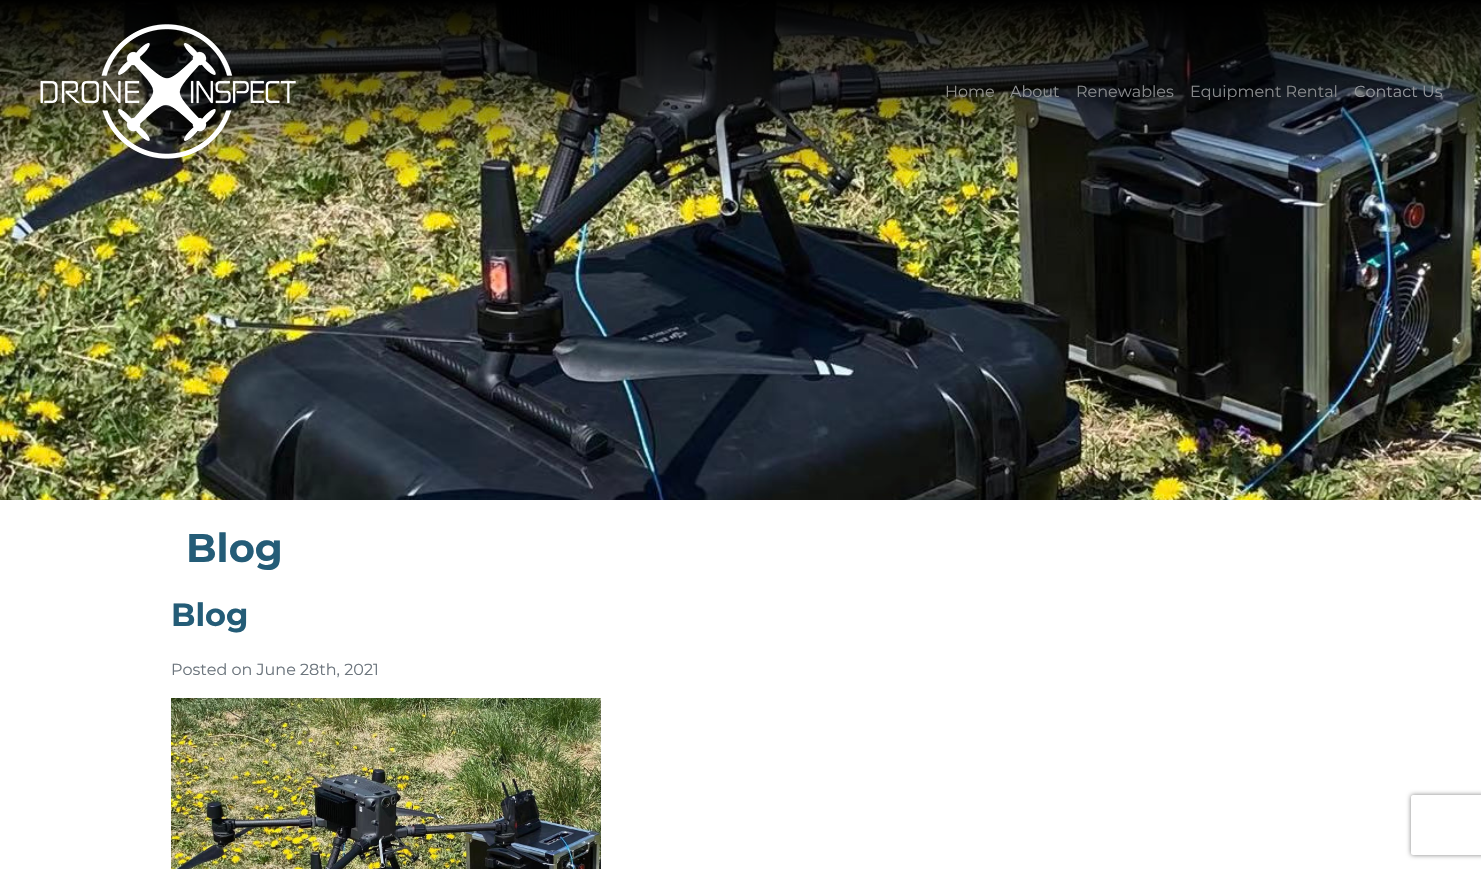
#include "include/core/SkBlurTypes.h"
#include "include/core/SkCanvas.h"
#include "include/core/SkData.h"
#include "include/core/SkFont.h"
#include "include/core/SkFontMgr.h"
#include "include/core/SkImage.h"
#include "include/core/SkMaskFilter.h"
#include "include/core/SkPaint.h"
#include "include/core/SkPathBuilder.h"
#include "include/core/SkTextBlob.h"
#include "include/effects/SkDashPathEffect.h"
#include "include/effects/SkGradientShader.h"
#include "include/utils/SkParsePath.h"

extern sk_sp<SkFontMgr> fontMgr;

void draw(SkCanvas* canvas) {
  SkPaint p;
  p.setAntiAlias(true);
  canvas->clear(SK_ColorWHITE);
  canvas->drawImageRect(SkImages::DeferredFromEncodedData(SkData::MakeFromFileName("images/1.png")), SkRect::MakeLTRB(0, 0, 1481, 500), SkSamplingOptions());
  canvas->drawImageRect(SkImages::DeferredFromEncodedData(SkData::MakeFromFileName("images/2.png")), SkRect::MakeLTRB(40, 24, 296, 159), SkSamplingOptions());
  canvas->drawImageRect(SkImages::DeferredFromEncodedData(SkData::MakeFromFileName("images/3.png")), SkRect::MakeLTRB(171, 698, 601, 869), SkSamplingOptions());
  canvas->save();
  canvas->clipPath(SkPathBuilder(SkPathFillType::kEvenOdd).moveTo(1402, 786).lineTo(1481, 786).lineTo(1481, 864).lineTo(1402, 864).close().moveTo(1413, 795).lineTo(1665, 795).cubicTo(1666, 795, 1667, 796, 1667, 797).lineTo(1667, 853).cubicTo(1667, 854, 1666, 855, 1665, 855).lineTo(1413, 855).cubicTo(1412, 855, 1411, 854, 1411, 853).lineTo(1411, 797).cubicTo(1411, 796, 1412, 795, 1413, 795).close().detach(), true);
  p.setColor(SkColorSetRGB(128, 128, 128));
  p.setMaskFilter(SkMaskFilter::MakeBlur(kNormal_SkBlurStyle, 2.5f));
  canvas->drawRoundRect(SkRect::MakeLTRB(1411, 795, 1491, 855), 2, 2, p);
  p.setMaskFilter(nullptr);
  canvas->restore();
  SkFont font1(fontMgr->matchFamilyStyle("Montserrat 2", SkFontStyle(100, SkFontStyle::kNormal_Width, SkFontStyle::kUpright_Slant)), 16);
  font1.setSubpixel(true);
  p.setColor(SkColorSetRGB(143, 143, 138));
  canvas->drawString("Home", 945, 97, font1, p);
  p.setColor(SkColorSetRGB(145, 147, 149));
  canvas->drawString("About", 1010, 97, font1, p);
  p.setColor(SkColorSetRGB(135, 137, 139));
  canvas->drawString("Renewables", 1076, 97, font1, p);
  canvas->drawString("Equipment Rental", 1190, 97, font1, p);
  p.setColor(SkColorSetRGB(147, 150, 155));
  canvas->drawString("Contact Us", 1354, 97, font1, p);
  SkFont font2(fontMgr->matchFamilyStyle("Montserrat", SkFontStyle(100, SkFontStyle::kNormal_Width, SkFontStyle::kUpright_Slant)), 40);
  font2.setSubpixel(true);
  p.setColor(SkColorSetRGB(36, 92, 119));
  canvas->drawString("Blog", 186, 562, font2, p);
  SkFont font3(fontMgr->matchFamilyStyle("Montserrat", SkFontStyle(100, SkFontStyle::kNormal_Width, SkFontStyle::kUpright_Slant)), 32);
  font3.setSubpixel(true);
  canvas->drawString("Blog", 171, 626, font3, p);
  p.setColor(SkColorSetRGB(108, 117, 125));
  canvas->drawString("Posted on June 28th, 2021", 171, 675, font1, p);
}
